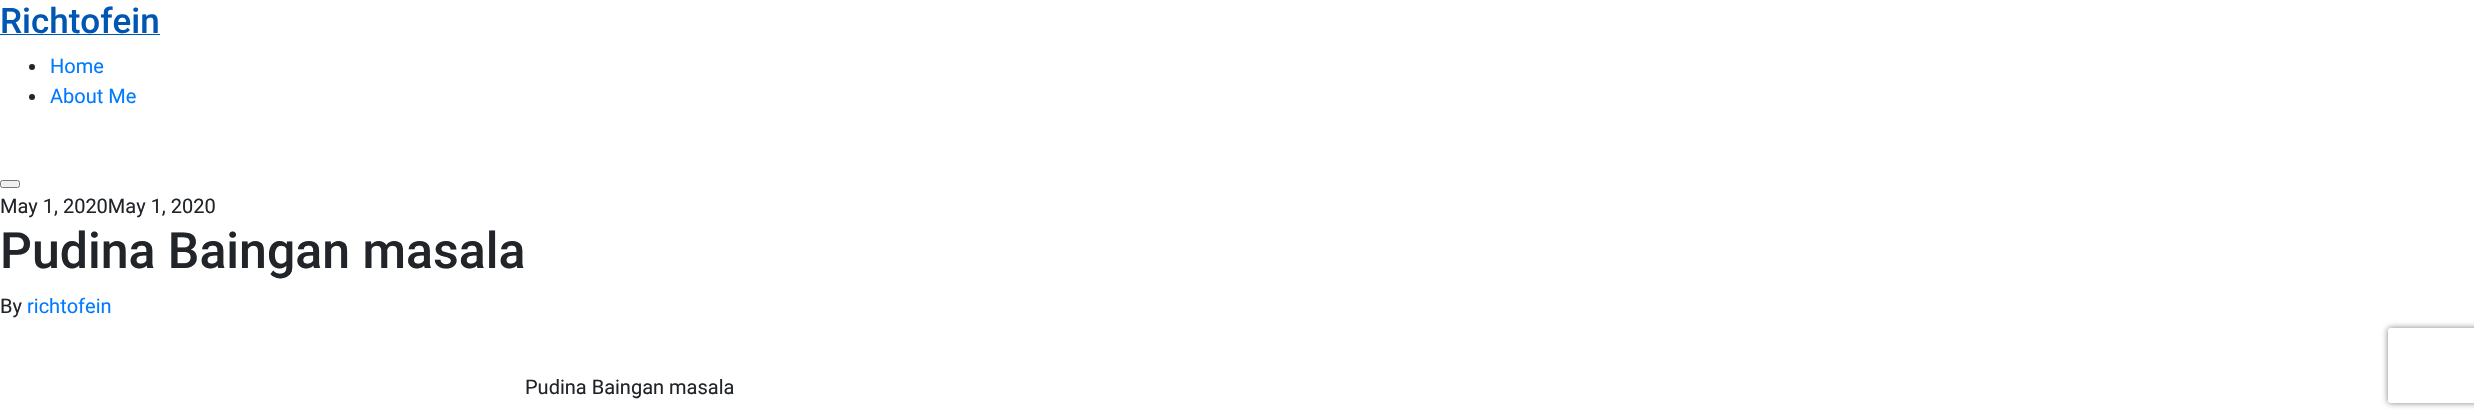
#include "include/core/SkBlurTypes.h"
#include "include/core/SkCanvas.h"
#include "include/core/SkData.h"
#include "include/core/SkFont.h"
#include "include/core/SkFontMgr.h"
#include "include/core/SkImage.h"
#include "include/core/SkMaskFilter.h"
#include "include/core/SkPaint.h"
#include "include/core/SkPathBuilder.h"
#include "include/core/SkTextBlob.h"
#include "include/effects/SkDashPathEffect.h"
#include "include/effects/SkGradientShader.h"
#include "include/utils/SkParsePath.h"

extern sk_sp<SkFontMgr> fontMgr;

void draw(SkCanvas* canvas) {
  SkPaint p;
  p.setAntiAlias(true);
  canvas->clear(SK_ColorWHITE);
  p.setColor(SkColorSetRGB(0, 86, 179));
  canvas->drawRect(SkRect::MakeLTRB(0, 34, 160, 35), p);
  p.setColor(SkColorSetRGB(33, 37, 41));
  canvas->drawCircle(32, 67, 3, p);
  canvas->drawCircle(32, 97, 3, p);
  p.setColor(SkColorSetRGB(239, 239, 239));
  canvas->drawRoundRect(SkRect::MakeLTRB(0.5f, 180.5f, 19.5f, 187.5f), 2, 2, p);
  p.setStyle(SkPaint::kStroke_Style);
  p.setStrokeWidth(1);
  p.setColor(SkColorSetRGB(118, 118, 118));
  canvas->drawRoundRect(SkRect::MakeLTRB(0.5f, 180.5f, 19.5f, 187.5f), 2, 2, p);
  canvas->save();
  canvas->clipPath(SkPathBuilder(SkPathFillType::kEvenOdd).moveTo(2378, 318).lineTo(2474, 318).lineTo(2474, 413).lineTo(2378, 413).close().moveTo(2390.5f, 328).lineTo(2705.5f, 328).cubicTo(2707, 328, 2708, 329, 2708, 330.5f).lineTo(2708, 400.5f).cubicTo(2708, 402, 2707, 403, 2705.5f, 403).lineTo(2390.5f, 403).cubicTo(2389, 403, 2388, 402, 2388, 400.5f).lineTo(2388, 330.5f).cubicTo(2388, 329, 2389, 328, 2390.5f, 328).close().detach(), true);
  p.setStyle(SkPaint::kFill_Style);
  p.setColor(SkColorSetRGB(128, 128, 128));
  p.setMaskFilter(SkMaskFilter::MakeBlur(kNormal_SkBlurStyle, 3));
  canvas->drawRoundRect(SkRect::MakeLTRB(2388, 328, 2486, 403), 2.5f, 2.5f, p);
  p.setMaskFilter(nullptr);
  canvas->restore();
  SkFont font1(fontMgr->matchFamilyStyle("Roboto", SkFontStyle(500, SkFontStyle::kNormal_Width, SkFontStyle::kUpright_Slant)), 35);
  font1.setSubpixel(true);
  p.setColor(SkColorSetRGB(0, 86, 179));
  canvas->drawString("Richtofein", 0, 33, font1, p);
  SkFont font2(fontMgr->matchFamilyStyle("Roboto", SkFontStyle::Normal()), 20);
  font2.setSubpixel(true);
  p.setColor(SkColorSetRGB(0, 123, 255));
  canvas->drawString("Home", 50, 73, font2, p);
  canvas->drawString("About Me", 50, 103, font2, p);
  p.setColor(SkColorSetRGB(33, 37, 41));
  canvas->drawString("May 1, 2020May 1, 2020", 0, 213, font2, p);
  SkFont font3(fontMgr->matchFamilyStyle("Roboto", SkFontStyle(500, SkFontStyle::kNormal_Width, SkFontStyle::kUpright_Slant)), 50);
  font3.setSubpixel(true);
  canvas->drawString("Pudina Baingan masala", 0, 268, font3, p);
  canvas->drawString("By", 0, 313, font2, p);
  p.setColor(SkColorSetRGB(0, 123, 255));
  canvas->drawString("richtofein", 27, 313, font2, p);
  p.setColor(SkColorSetRGB(33, 37, 41));
  canvas->drawString("Pudina Baingan masala", 525, 394, font2, p);
}
